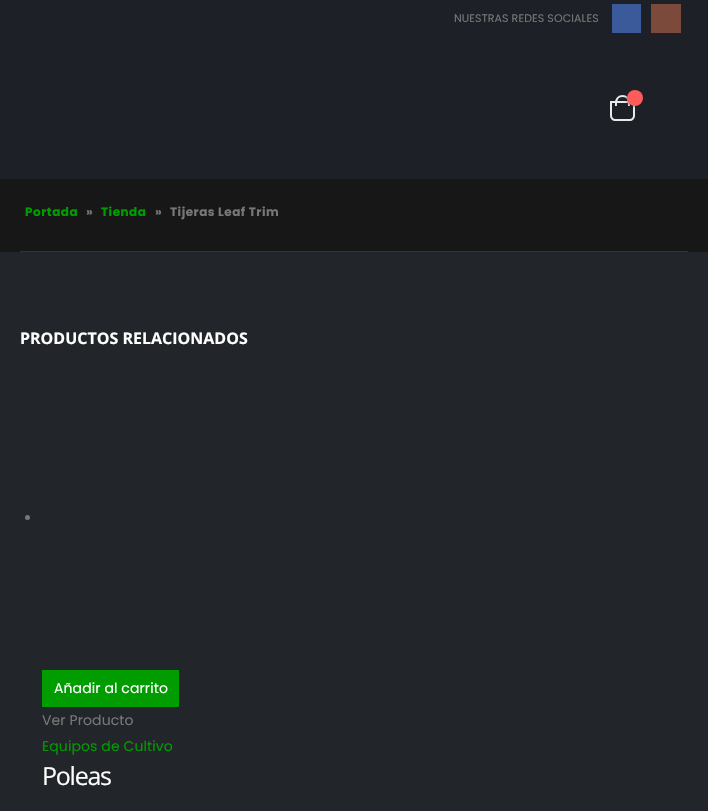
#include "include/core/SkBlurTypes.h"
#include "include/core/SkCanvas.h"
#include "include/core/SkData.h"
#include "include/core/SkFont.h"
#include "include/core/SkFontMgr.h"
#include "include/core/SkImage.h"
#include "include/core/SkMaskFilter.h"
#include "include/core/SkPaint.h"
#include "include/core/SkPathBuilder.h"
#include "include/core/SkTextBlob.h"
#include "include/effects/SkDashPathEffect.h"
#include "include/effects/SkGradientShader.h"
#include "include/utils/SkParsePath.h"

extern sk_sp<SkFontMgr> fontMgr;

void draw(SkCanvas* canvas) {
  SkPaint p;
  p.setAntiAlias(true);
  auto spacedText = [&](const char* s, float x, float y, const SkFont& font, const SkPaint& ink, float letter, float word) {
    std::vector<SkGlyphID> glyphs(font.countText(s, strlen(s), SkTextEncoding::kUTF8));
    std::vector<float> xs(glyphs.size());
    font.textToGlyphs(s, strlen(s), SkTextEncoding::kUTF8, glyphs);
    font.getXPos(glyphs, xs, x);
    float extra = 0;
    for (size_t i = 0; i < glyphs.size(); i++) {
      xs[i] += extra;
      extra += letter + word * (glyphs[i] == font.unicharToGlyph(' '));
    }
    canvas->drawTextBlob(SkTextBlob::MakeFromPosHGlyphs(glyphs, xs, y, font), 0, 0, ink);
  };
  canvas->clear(SkColorSetRGB(29, 33, 39));
  p.setColor(SkColorSetRGB(59, 90, 154));
  canvas->drawRect(SkRect::MakeLTRB(612, 4, 641, 33), p);
  p.setColor(SkColorSetRGB(124, 74, 58));
  canvas->drawRect(SkRect::MakeLTRB(651, 4, 681, 33), p);
  p.setStyle(SkPaint::kStroke_Style);
  p.setStrokeWidth(2);
  p.setColor(SkColorSetRGB(232, 233, 233));
  canvas->drawPath(SkPathBuilder().moveTo(611, 102).lineTo(634, 102).lineTo(634, 116).cubicTo(634, 118, 632, 120, 630, 120).lineTo(615, 120).cubicTo(613, 120, 611, 118, 611, 116).close().detach(), p);
  p.setStyle(SkPaint::kFill_Style);
  canvas->drawPath(SkPathBuilder(SkPathFillType::kEvenOdd).moveTo(622.5f, 95).cubicTo(626.5f, 95, 630, 98.5f, 630, 102.5f).lineTo(630, 106).lineTo(615, 106).lineTo(615, 102.5f).cubicTo(615, 98.5f, 618.5f, 95, 622.5f, 95).close().moveTo(622.5f, 97).cubicTo(628, 97, 628, 102, 628, 106).lineTo(617, 106).cubicTo(617, 102, 617, 97, 622.5f, 97).close().detach(), p);
  p.setColor(SkColorSetARGB(77, 0, 0, 0));
  p.setMaskFilter(SkMaskFilter::MakeBlur(kNormal_SkBlurStyle, 1));
  canvas->drawRoundRect(SkRect::MakeLTRB(626, 91, 642, 107), 8, 8, p);
  p.setMaskFilter(nullptr);
  p.setColor(SkColorSetRGB(255, 91, 91));
  canvas->drawCircle(635, 98, 8, p);
  p.setColor(SkColorSetRGB(23, 23, 23));
  canvas->drawRect(SkRect::MakeLTRB(0, 179, 708, 252), p);
  p.setColor(SkColorSetRGB(48, 52, 56));
  canvas->drawRect(SkRect::MakeLTRB(20, 251, 688, 252), p);
  p.setColor(SkColorSetRGB(34, 37, 41));
  canvas->drawRect(SkRect::MakeLTRB(0, 252, 708, 811), p);
  p.setColor(SkColorSetRGB(119, 119, 119));
  canvas->drawCircle(27.5f, 517.5f, 2.5f, p);
  p.setColor(SkColorSetRGB(0, 156, 0));
  canvas->drawRect(SkRect::MakeLTRB(42, 670, 179, 707), p);
  SkFont font1(fontMgr->matchFamilyStyle("Poppins", SkFontStyle::Normal()), 11);
  font1.setSubpixel(true);
  p.setColor(SkColorSetRGB(119, 119, 119));
  spacedText("NUESTRAS REDES SOCIALES", 454, 22, font1, p, 0.1f, 0);
  SkFont font2(fontMgr->matchFamilyStyle("Poppins", SkFontStyle::Bold()), 12);
  font2.setSubpixel(true);
  p.setColor(SkColorSetRGB(0, 156, 0));
  spacedText("Portada", 25, 216, font2, p, 0.5f, 0);
  p.setColor(SkColorSetRGB(119, 119, 119));
  spacedText("»", 86, 216, font2, p, 0.5f, 0);
  p.setColor(SkColorSetRGB(0, 156, 0));
  spacedText("Tienda", 101, 216, font2, p, 0.5f, 0);
  p.setColor(SkColorSetRGB(119, 119, 119));
  spacedText("»", 155, 216, font2, p, 0.5f, 0);
  spacedText("Tijeras Leaf Trim", 170, 216, font2, p, 0.5f, 0);
  SkFont font3(fontMgr->matchFamilyStyle("Open Sans", SkFontStyle::Bold()), 16);
  font3.setSubpixel(true);
  p.setColor(SK_ColorWHITE);
  canvas->drawString("PRODUCTOS RELACIONADOS", 20, 344, font3, p);
  SkFont font4(fontMgr->matchFamilyStyle("Poppins", SkFontStyle::Normal()), 14);
  font4.setSubpixel(true);
  spacedText("Añadir al carrito", 54, 693, font4, p, 0.1f, 0);
  p.setColor(SkColorSetRGB(119, 119, 119));
  spacedText("Ver Producto", 42, 725, font4, p, 0.1f, 0);
  p.setColor(SkColorSetRGB(0, 156, 0));
  spacedText("Equipos de Cultivo", 42, 751, font4, p, 0.1f, 0);
  SkFont font5(fontMgr->matchFamilyStyle("Open Sans", SkFontStyle::Normal()), 25);
  font5.setSubpixel(true);
  p.setColor(SK_ColorWHITE);
  spacedText("Poleas", 42, 785, font5, p, -1.25f, 0);
}
